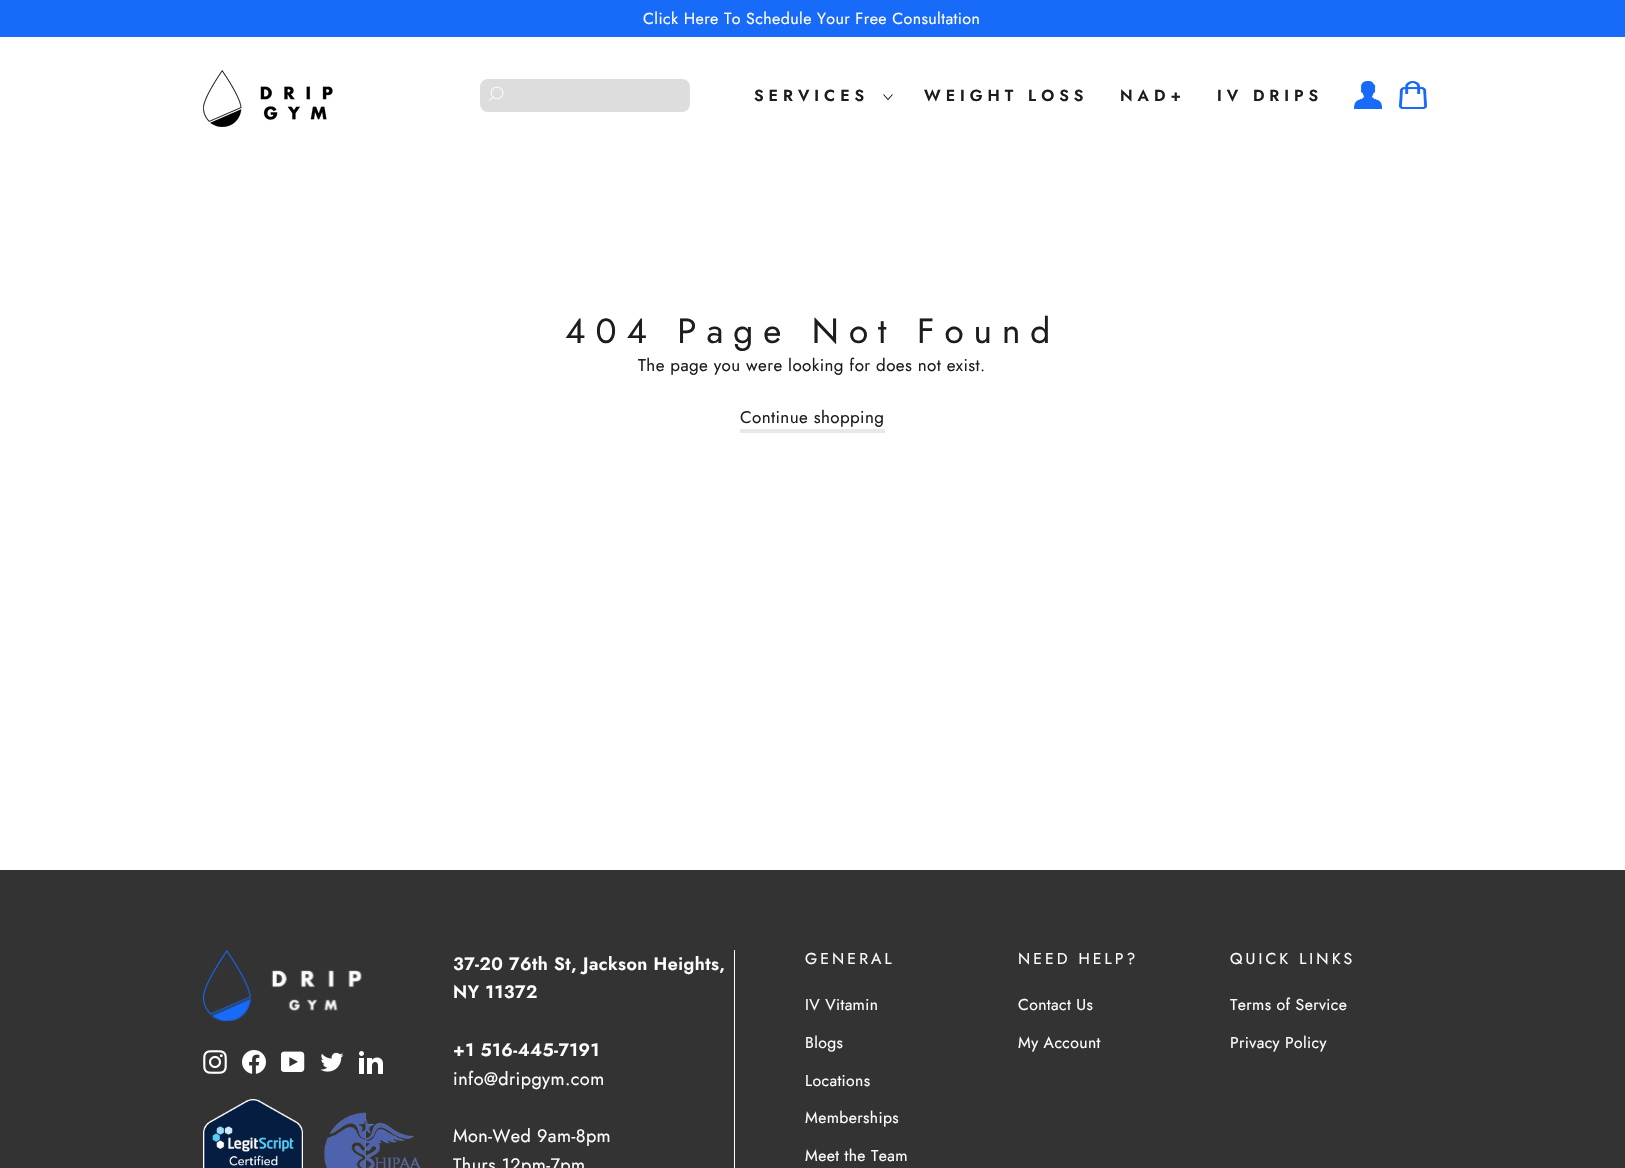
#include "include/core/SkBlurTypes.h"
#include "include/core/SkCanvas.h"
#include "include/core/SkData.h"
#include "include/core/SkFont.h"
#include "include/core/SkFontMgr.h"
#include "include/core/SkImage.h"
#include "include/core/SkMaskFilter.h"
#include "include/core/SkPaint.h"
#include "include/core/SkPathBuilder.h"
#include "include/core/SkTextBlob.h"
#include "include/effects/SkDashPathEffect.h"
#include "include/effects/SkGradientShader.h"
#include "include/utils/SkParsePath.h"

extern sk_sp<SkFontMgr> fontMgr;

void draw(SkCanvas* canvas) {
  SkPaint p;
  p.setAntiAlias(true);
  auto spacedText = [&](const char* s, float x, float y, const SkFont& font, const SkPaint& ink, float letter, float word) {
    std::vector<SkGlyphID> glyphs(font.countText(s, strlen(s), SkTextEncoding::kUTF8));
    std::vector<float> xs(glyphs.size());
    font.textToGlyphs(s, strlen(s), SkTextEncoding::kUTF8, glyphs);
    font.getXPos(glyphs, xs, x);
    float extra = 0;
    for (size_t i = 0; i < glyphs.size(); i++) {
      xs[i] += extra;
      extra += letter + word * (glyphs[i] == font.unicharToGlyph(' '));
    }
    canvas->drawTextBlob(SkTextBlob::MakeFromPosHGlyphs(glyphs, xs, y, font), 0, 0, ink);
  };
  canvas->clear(SK_ColorWHITE);
  p.setColor(SkColorSetRGB(24, 106, 249));
  canvas->drawRect(SkRect::MakeLTRB(0, 0, 1625, 37), p);
  canvas->drawImageRect(SkImages::DeferredFromEncodedData(SkData::MakeFromFileName("images/1.png")), SkRect::MakeLTRB(203, 70, 333, 127), SkSamplingOptions());
  p.setColor(SkColorSetRGB(221, 221, 221));
  canvas->drawRoundRect(SkRect::MakeLTRB(480, 79, 690, 112), 8, 8, p);
  canvas->drawImageRect(SkImages::DeferredFromEncodedData(SkData::MakeFromFileName("images/2.png")), SkRect::MakeLTRB(489, 86, 504, 101), SkSamplingOptions());
  p.setStyle(SkPaint::kStroke_Style);
  p.setStrokeWidth(1.1f);
  p.setColor(SkColorSetRGB(28, 29, 29));
  canvas->drawPath(SkPathBuilder().moveTo(883.5f, 94.5f).lineTo(888, 99.5f).lineTo(892.5f, 94.5f).detach(), p);
  canvas->drawImageRect(SkImages::DeferredFromEncodedData(SkData::MakeFromFileName("images/3.png")), SkRect::MakeLTRB(1354, 81, 1382, 109), SkSamplingOptions());
  canvas->drawImageRect(SkImages::DeferredFromEncodedData(SkData::MakeFromFileName("images/4.png")), SkRect::MakeLTRB(1399, 81, 1427, 109), SkSamplingOptions());
  p.setStyle(SkPaint::kFill_Style);
  p.setColor(SkColorSetRGB(232, 232, 232));
  canvas->drawRect(SkRect::MakeLTRB(740, 429, 885, 433), p);
  p.setColor(SkColorSetRGB(51, 51, 51));
  canvas->drawRect(SkRect::MakeLTRB(0, 870, 1625, 1168), p);
  canvas->drawImageRect(SkImages::DeferredFromEncodedData(SkData::MakeFromFileName("images/5.png")), SkRect::MakeLTRB(203, 950, 362, 1021), SkSamplingOptions());
  canvas->drawImageRect(SkImages::DeferredFromEncodedData(SkData::MakeFromFileName("images/6.png")), SkRect::MakeLTRB(203, 1050, 227, 1074), SkSamplingOptions());
  canvas->drawImageRect(SkImages::DeferredFromEncodedData(SkData::MakeFromFileName("images/7.png")), SkRect::MakeLTRB(242, 1050, 266, 1074), SkSamplingOptions());
  canvas->drawImageRect(SkImages::DeferredFromEncodedData(SkData::MakeFromFileName("images/8.png")), SkRect::MakeLTRB(281, 1051, 305, 1072), SkSamplingOptions());
  canvas->drawImageRect(SkImages::DeferredFromEncodedData(SkData::MakeFromFileName("images/9.png")), SkRect::MakeLTRB(320, 1052, 344, 1072), SkSamplingOptions());
  canvas->drawImageRect(SkImages::DeferredFromEncodedData(SkData::MakeFromFileName("images/10.png")), SkRect::MakeLTRB(359, 1051, 383, 1074), SkSamplingOptions());
  canvas->drawImageRect(SkImages::DeferredFromEncodedData(SkData::MakeFromFileName("images/11.png")), SkRect::MakeLTRB(203, 1099, 303, 1168), SkSamplingOptions());
  canvas->drawImageRect(SkImages::DeferredFromEncodedData(SkData::MakeFromFileName("images/12.png")), SkRect::MakeLTRB(324, 1112, 421, 1168), SkSamplingOptions());
  p.setColor(SK_ColorWHITE);
  canvas->drawRect(SkRect::MakeLTRB(734, 950, 735, 1168), p);
  SkFont font1(fontMgr->matchFamilyStyle("Jost", SkFontStyle::Normal()), 16);
  font1.setSubpixel(true);
  spacedText("Click Here To Schedule Your Free Consultation", 643, 24, font1, p, 0.4f, 0);
  SkFont font2(fontMgr->matchFamilyStyle("Jost", SkFontStyle(600, SkFontStyle::kNormal_Width, SkFontStyle::kUpright_Slant)), 16);
  font2.setSubpixel(true);
  p.setColor(SkColorSetRGB(28, 29, 29));
  spacedText("SERVICES", 754, 101, font2, p, 5, 0);
  spacedText("WEIGHT LOSS", 924, 101, font2, p, 5, 0);
  spacedText("NAD+", 1120, 101, font2, p, 5, 0);
  spacedText("IV DRIPS", 1217, 101, font2, p, 5, 0);
  SkFont font3(fontMgr->matchFamilyStyle("Jost", SkFontStyle::Normal()), 35);
  font3.setSubpixel(true);
  spacedText("404 Page Not Found", 565, 343, font3, p, 10, 0);
  SkFont font4(fontMgr->matchFamilyStyle("Jost", SkFontStyle::Normal()), 17);
  font4.setSubpixel(true);
  spacedText("The page you were looking for does not exist.", 638, 371, font4, p, 0.4f, 0);
  spacedText("Continue shopping", 740, 423, font4, p, 0.4f, 0);
  SkFont font5(fontMgr->matchFamilyStyle("Jost", SkFontStyle(600, SkFontStyle::kNormal_Width, SkFontStyle::kUpright_Slant)), 18);
  font5.setSubpixel(true);
  p.setColor(SK_ColorWHITE);
  spacedText("37-20 76th St, Jackson Heights,", 453, 970, font5, p, 0.45f, 0);
  spacedText("NY 11372", 453, 998, font5, p, 0.45f, 0);
  spacedText("+1 516-445-7191", 453, 1056, font5, p, 0.45f, 0);
  SkFont font6(fontMgr->matchFamilyStyle("Jost", SkFontStyle::Normal()), 18);
  font6.setSubpixel(true);
  spacedText("info@dripgym.com", 453, 1085, font6, p, 0.45f, 0);
  spacedText("Mon-Wed 9am-8pm", 453, 1142, font6, p, 0.45f, 0);
  spacedText("Thurs 12pm-7pm", 453, 1171, font6, p, 0.45f, 0);
  SkFont font7(fontMgr->matchFamilyStyle("Jost", SkFontStyle::Normal()), 15.75f);
  font7.setSubpixel(true);
  spacedText("GENERAL", 805, 964, font7, p, 3.1f, 0);
  spacedText("IV Vitamin", 805, 1010, font7, p, 0.4f, 0);
  spacedText("Blogs", 805, 1048, font7, p, 0.4f, 0);
  spacedText("Locations", 805, 1086, font7, p, 0.4f, 0);
  spacedText("Memberships", 805, 1123, font7, p, 0.4f, 0);
  spacedText("Meet the Team", 805, 1161, font7, p, 0.4f, 0);
  spacedText("NEED HELP?", 1018, 964, font7, p, 3.1f, 0);
  spacedText("Contact Us", 1018, 1010, font7, p, 0.4f, 0);
  spacedText("My Account", 1018, 1048, font7, p, 0.4f, 0);
  spacedText("QUICK LINKS", 1230, 964, font7, p, 3.1f, 0);
  spacedText("Terms of Service", 1230, 1010, font7, p, 0.4f, 0);
  spacedText("Privacy Policy", 1230, 1048, font7, p, 0.4f, 0);
}
